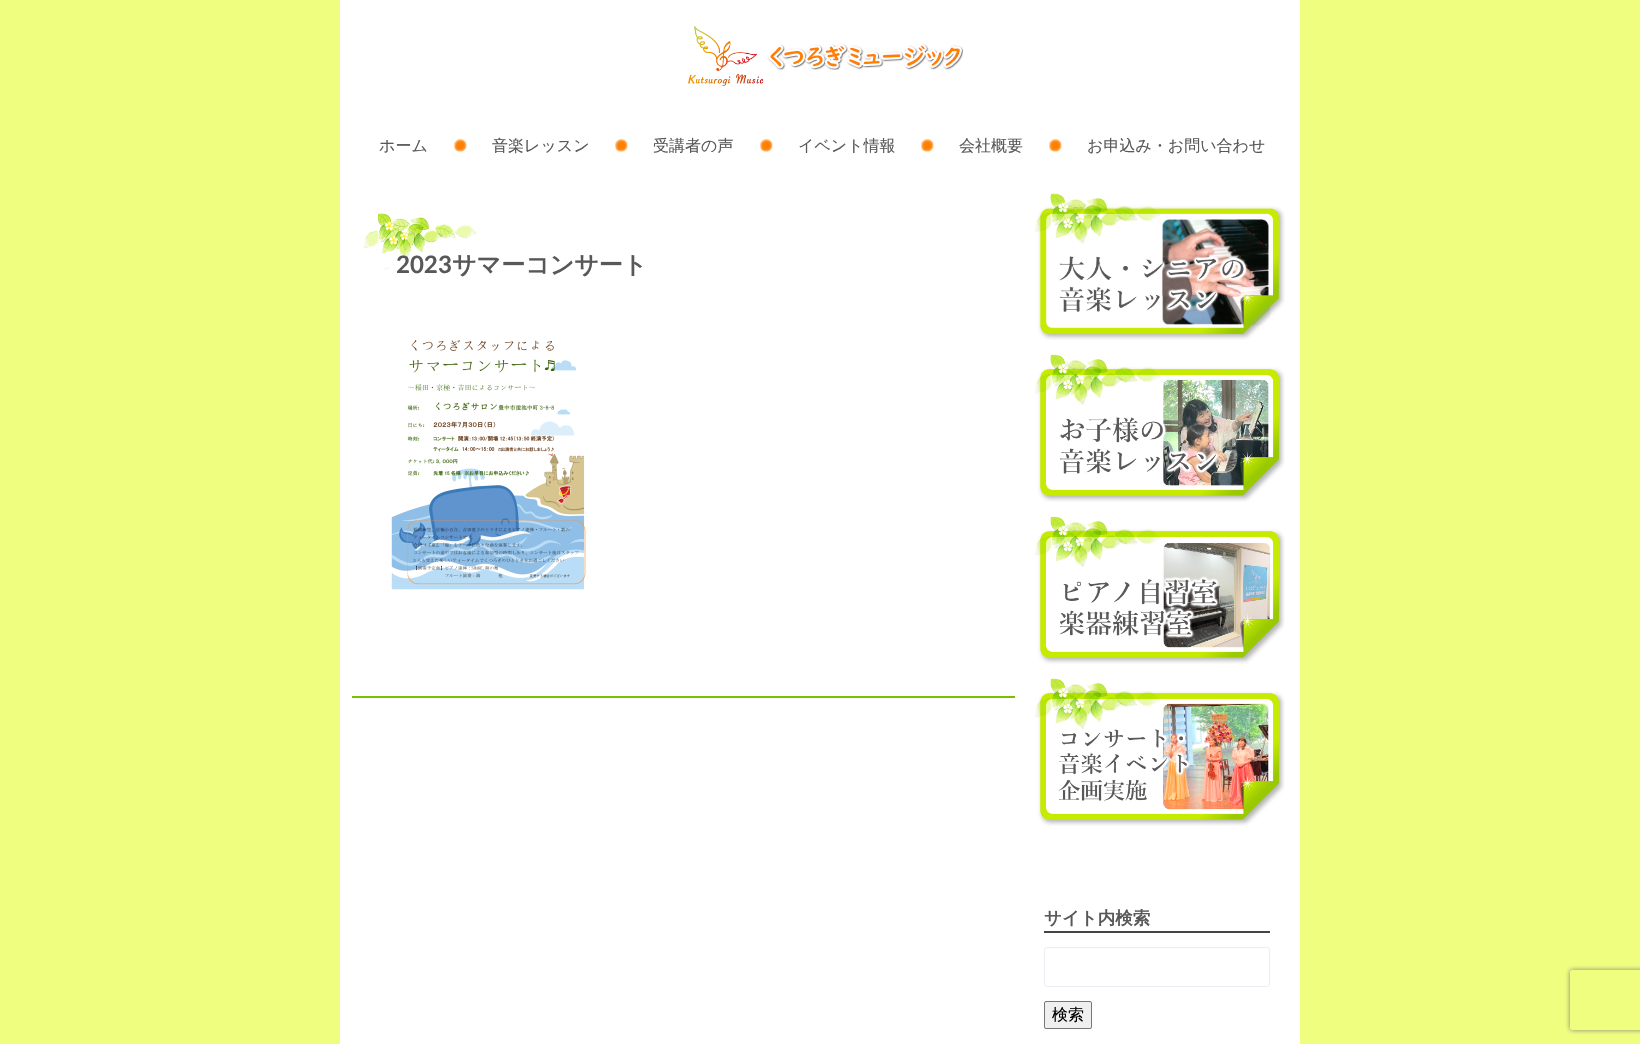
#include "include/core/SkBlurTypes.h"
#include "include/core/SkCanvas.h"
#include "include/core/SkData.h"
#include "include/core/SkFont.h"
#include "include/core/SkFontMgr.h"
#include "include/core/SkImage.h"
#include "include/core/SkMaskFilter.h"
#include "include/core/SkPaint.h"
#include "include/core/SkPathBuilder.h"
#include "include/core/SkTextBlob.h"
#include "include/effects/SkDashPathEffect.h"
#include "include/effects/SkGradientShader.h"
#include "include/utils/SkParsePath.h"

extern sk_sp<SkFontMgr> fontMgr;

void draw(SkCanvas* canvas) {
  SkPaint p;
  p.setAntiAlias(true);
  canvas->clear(SkColorSetRGB(240, 254, 128));
  p.setColor(SK_ColorWHITE);
  canvas->drawRect(SkRect::MakeLTRB(340, 0, 1300, 1044), p);
  canvas->drawImageRect(SkImages::DeferredFromEncodedData(SkData::MakeFromFileName("images/1.png")), SkRect::MakeLTRB(688, 26, 963, 86), SkSamplingOptions());
  canvas->drawImageRect(SkImages::DeferredFromEncodedData(SkData::MakeFromFileName("images/2.png")), SkRect::MakeLTRB(454, 139, 467, 152), SkSamplingOptions());
  canvas->drawImageRect(SkImages::DeferredFromEncodedData(SkData::MakeFromFileName("images/2.png")), SkRect::MakeLTRB(615, 139, 628, 152), SkSamplingOptions());
  canvas->drawImageRect(SkImages::DeferredFromEncodedData(SkData::MakeFromFileName("images/2.png")), SkRect::MakeLTRB(760, 139, 773, 152), SkSamplingOptions());
  canvas->drawImageRect(SkImages::DeferredFromEncodedData(SkData::MakeFromFileName("images/2.png")), SkRect::MakeLTRB(921, 139, 934, 152), SkSamplingOptions());
  canvas->drawImageRect(SkImages::DeferredFromEncodedData(SkData::MakeFromFileName("images/2.png")), SkRect::MakeLTRB(1049, 139, 1062, 152), SkSamplingOptions());
  p.setColor(SkColorSetRGB(124, 191, 0));
  canvas->drawRect(SkRect::MakeLTRB(352, 696, 1015, 698), p);
  canvas->drawImageRect(SkImages::DeferredFromEncodedData(SkData::MakeFromFileName("images/3.png")), SkRect::MakeLTRB(363, 213, 477, 270), SkSamplingOptions());
  canvas->drawImageRect(SkImages::DeferredFromEncodedData(SkData::MakeFromFileName("images/4.png")), SkRect::MakeLTRB(391, 340, 586, 590), SkSamplingOptions());
  canvas->drawImageRect(SkImages::DeferredFromEncodedData(SkData::MakeFromFileName("images/5.png")), SkRect::MakeLTRB(1035, 193, 1285, 340), SkSamplingOptions());
  canvas->drawImageRect(SkImages::DeferredFromEncodedData(SkData::MakeFromFileName("images/6.png")), SkRect::MakeLTRB(1035, 354, 1285, 502), SkSamplingOptions());
  canvas->drawImageRect(SkImages::DeferredFromEncodedData(SkData::MakeFromFileName("images/7.png")), SkRect::MakeLTRB(1035, 516, 1285, 664), SkSamplingOptions());
  canvas->drawImageRect(SkImages::DeferredFromEncodedData(SkData::MakeFromFileName("images/8.png")), SkRect::MakeLTRB(1035, 678, 1285, 826), SkSamplingOptions());
  p.setColor(SkColorSetRGB(68, 68, 68));
  canvas->drawRect(SkRect::MakeLTRB(1044, 931, 1270, 933), p);
  p.setStyle(SkPaint::kStroke_Style);
  p.setStrokeWidth(1);
  p.setColor(SkColorSetRGB(234, 237, 242));
  canvas->drawRoundRect(SkRect::MakeLTRB(1044.5f, 947.5f, 1269.5f, 986.5f), 2.5f, 2.5f, p);
  p.setStyle(SkPaint::kFill_Style);
  p.setColor(SkColorSetRGB(239, 239, 239));
  canvas->drawRoundRect(SkRect::MakeLTRB(1044.5f, 1001.5f, 1091.5f, 1028.5f), 1.5f, 1.5f, p);
  p.setStyle(SkPaint::kStroke_Style);
  p.setColor(SkColorSetRGB(118, 118, 118));
  canvas->drawRoundRect(SkRect::MakeLTRB(1044.5f, 1001.5f, 1091.5f, 1028.5f), 1.5f, 1.5f, p);
  canvas->save();
  canvas->clipPath(SkPathBuilder(SkPathFillType::kEvenOdd).moveTo(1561, 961).lineTo(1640, 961).lineTo(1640, 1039).lineTo(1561, 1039).close().moveTo(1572, 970).lineTo(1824, 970).cubicTo(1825, 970, 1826, 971, 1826, 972).lineTo(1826, 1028).cubicTo(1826, 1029, 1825, 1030, 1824, 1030).lineTo(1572, 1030).cubicTo(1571, 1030, 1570, 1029, 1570, 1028).lineTo(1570, 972).cubicTo(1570, 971, 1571, 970, 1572, 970).close().detach(), true);
  p.setStyle(SkPaint::kFill_Style);
  p.setColor(SkColorSetRGB(128, 128, 128));
  p.setMaskFilter(SkMaskFilter::MakeBlur(kNormal_SkBlurStyle, 2.5f));
  canvas->drawRoundRect(SkRect::MakeLTRB(1570, 970, 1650, 1030), 2, 2, p);
  p.setMaskFilter(nullptr);
  canvas->restore();
  SkFont font1(fontMgr->matchFamilyStyle("WenQuanYi Zen Hei", SkFontStyle(500, SkFontStyle::kNormal_Width, SkFontStyle::kUpright_Slant)), 16);
  font1.setSubpixel(true);
  p.setColor(SkColorSetRGB(89, 87, 87));
  canvas->drawString("ホーム", 379, 151, font1, p);
  canvas->drawString("音楽レッスン", 492, 151, font1, p);
  canvas->drawString("受講者の声", 653, 151, font1, p);
  canvas->drawString("イベント情報", 798, 151, font1, p);
  canvas->drawString("会社概要", 959, 151, font1, p);
  canvas->drawString("お申込み・お問い合わせ", 1087, 151, font1, p);
  SkFont font2(fontMgr->matchFamilyStyle("Lato", SkFontStyle::Bold()), 24);
  font2.setSubpixel(true);
  canvas->drawString("2023", 396, 273, font2, p);
  SkFont font3(fontMgr->matchFamilyStyle("WenQuanYi Zen Hei", SkFontStyle::Bold()), 24);
  font3.setSubpixel(true);
  canvas->drawString("サマーコンサート", 452, 273, font3, p);
  SkFont font4(fontMgr->matchFamilyStyle("WenQuanYi Zen Hei", SkFontStyle::Bold()), 17.5f);
  font4.setSubpixel(true);
  canvas->drawString("サイト内検索", 1044, 924, font4, p);
  p.setColor(SK_ColorBLACK);
  canvas->drawString("検索", 1052, 1020, font1, p);
}
